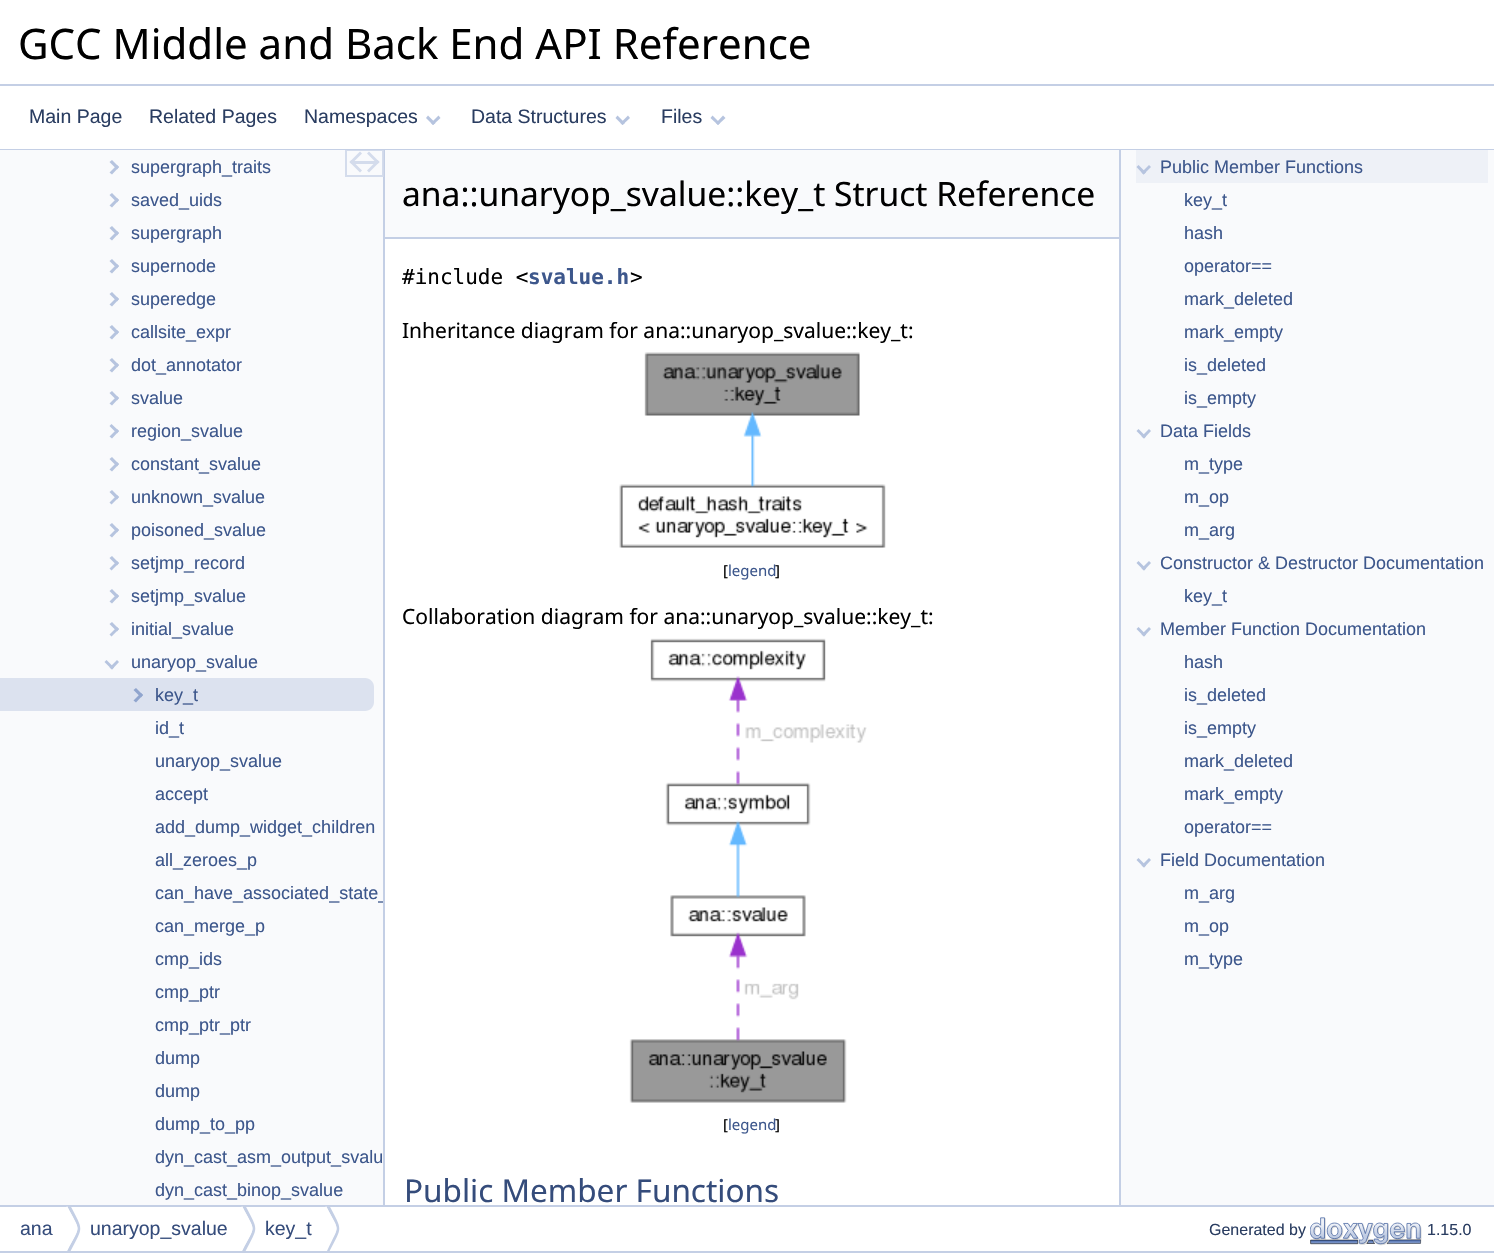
#include "include/core/SkBlurTypes.h"
#include "include/core/SkCanvas.h"
#include "include/core/SkData.h"
#include "include/core/SkFont.h"
#include "include/core/SkFontMgr.h"
#include "include/core/SkImage.h"
#include "include/core/SkMaskFilter.h"
#include "include/core/SkPaint.h"
#include "include/core/SkPathBuilder.h"
#include "include/core/SkTextBlob.h"
#include "include/effects/SkDashPathEffect.h"
#include "include/effects/SkGradientShader.h"
#include "include/utils/SkParsePath.h"

extern sk_sp<SkFontMgr> fontMgr;

void draw(SkCanvas* canvas) {
  SkPaint p;
  p.setAntiAlias(true);
  canvas->clear(SK_ColorWHITE);
  p.setColor(SkColorSetRGB(196, 207, 229));
  canvas->drawRect(SkRect::MakeLTRB(0, 84, 1494, 86), p);
  canvas->drawRect(SkRect::MakeLTRB(0, 149, 1494, 150), p);
  p.setColor(SkColorSetRGB(182, 196, 223));
  canvas->drawPath(SkPathBuilder().moveTo(438.5f, 115.5f).lineTo(440.5f, 118).lineTo(433, 125).lineTo(431, 123).close().detach(), p);
  canvas->drawPath(SkPathBuilder().moveTo(428, 115.5f).lineTo(435.5f, 123).lineTo(433, 125).lineTo(426, 118).close().detach(), p);
  canvas->drawPath(SkPathBuilder().moveTo(628, 115.5f).lineTo(630, 118).lineTo(622.5f, 125).lineTo(620.5f, 123).close().detach(), p);
  canvas->drawPath(SkPathBuilder().moveTo(617.5f, 115.5f).lineTo(625, 123).lineTo(622.5f, 125).lineTo(615.5f, 118).close().detach(), p);
  canvas->drawPath(SkPathBuilder().moveTo(723, 115.5f).lineTo(725.5f, 118).lineTo(718, 125).lineTo(716, 123).close().detach(), p);
  canvas->drawPath(SkPathBuilder().moveTo(712.5f, 115.5f).lineTo(720, 123).lineTo(718, 125).lineTo(710.5f, 118).close().detach(), p);
  p.setColor(SkColorSetRGB(249, 250, 252));
  canvas->drawRect(SkRect::MakeLTRB(0, 150, 383, 1205), p);
  p.setColor(SkColorSetRGB(196, 207, 229));
  canvas->drawRect(SkRect::MakeLTRB(384, 237, 1119, 239), p);
  canvas->drawRect(SkRect::MakeLTRB(383, 150, 385, 1205), p);
  p.setColor(SkColorSetRGB(233, 237, 245));
  canvas->drawRect(SkRect::MakeLTRB(383, 150, 384, 177), p);
  canvas->save();
  canvas->clipRect(SkRect::MakeLTRB(0, 150, 393, 1205));
  p.setStyle(SkPaint::kStroke_Style);
  p.setStrokeWidth(2);
  p.setColor(SkColorSetARGB(179, 196, 207, 229));
  canvas->drawRect(SkRect::MakeLTRB(346, 150, 383, 176), p);
  canvas->restore();
  p.setStyle(SkPaint::kFill_Style);
  p.setColor(SkColorSetRGB(212, 220, 236));
  canvas->drawPath(SkPathBuilder().moveTo(349.5f, 162).lineTo(360, 151.5f).lineTo(362, 153.5f).lineTo(351.5f, 164).close().detach(), p);
  canvas->drawPath(SkPathBuilder().moveTo(349.5f, 162).lineTo(351.5f, 160).lineTo(362, 170.5f).lineTo(360, 172.5f).close().moveTo(367, 153.5f).lineTo(369, 151.5f).lineTo(379.5f, 162).lineTo(377.5f, 164).close().detach(), p);
  canvas->drawPath(SkPathBuilder().moveTo(367, 170.5f).lineTo(377.5f, 160).lineTo(379.5f, 162).lineTo(369, 172.5f).close().detach(), p);
  canvas->drawRect(SkRect::MakeLTRB(353, 161, 377, 164), p);
  p.setColor(SkColorSetRGB(182, 196, 223));
  canvas->drawPath(SkPathBuilder().moveTo(109.5f, 162).lineTo(112, 160).lineTo(119, 167).lineTo(117, 169.5f).close().detach(), p);
  canvas->drawPath(SkPathBuilder().moveTo(109.5f, 172.5f).lineTo(117, 165).lineTo(119, 167).lineTo(112, 174.5f).close().moveTo(109.5f, 195).lineTo(112, 193).lineTo(119, 200).lineTo(117, 202.5f).close().detach(), p);
  canvas->drawPath(SkPathBuilder().moveTo(109.5f, 205.5f).lineTo(117, 198).lineTo(119, 200).lineTo(112, 207.5f).close().moveTo(109.5f, 228).lineTo(112, 226).lineTo(119, 233).lineTo(117, 235.5f).close().detach(), p);
  canvas->drawPath(SkPathBuilder().moveTo(109.5f, 238.5f).lineTo(117, 231).lineTo(119, 233).lineTo(112, 240.5f).close().moveTo(109.5f, 261).lineTo(112, 259).lineTo(119, 266).lineTo(117, 268.5f).close().detach(), p);
  canvas->drawPath(SkPathBuilder().moveTo(109.5f, 271.5f).lineTo(117, 264).lineTo(119, 266).lineTo(112, 273.5f).close().moveTo(109.5f, 294).lineTo(112, 292).lineTo(119, 299).lineTo(117, 301.5f).close().detach(), p);
  canvas->drawPath(SkPathBuilder().moveTo(109.5f, 304.5f).lineTo(117, 297).lineTo(119, 299).lineTo(112, 306.5f).close().moveTo(109.5f, 327).lineTo(112, 325).lineTo(119, 332).lineTo(117, 334.5f).close().detach(), p);
  canvas->drawPath(SkPathBuilder().moveTo(109.5f, 337.5f).lineTo(117, 330).lineTo(119, 332).lineTo(112, 339.5f).close().moveTo(109.5f, 360).lineTo(112, 358).lineTo(119, 365).lineTo(117, 367.5f).close().detach(), p);
  canvas->drawPath(SkPathBuilder().moveTo(109.5f, 370.5f).lineTo(117, 363).lineTo(119, 365).lineTo(112, 372.5f).close().moveTo(109.5f, 393).lineTo(112, 391).lineTo(119, 398).lineTo(117, 400.5f).close().detach(), p);
  canvas->drawPath(SkPathBuilder().moveTo(109.5f, 403.5f).lineTo(117, 396).lineTo(119, 398).lineTo(112, 405.5f).close().moveTo(109.5f, 426).lineTo(111.5f, 424).lineTo(119, 431).lineTo(117, 433.5f).close().detach(), p);
  canvas->drawPath(SkPathBuilder().moveTo(109.5f, 436.5f).lineTo(117, 429).lineTo(119, 431).lineTo(112, 438.5f).close().moveTo(109.5f, 459).lineTo(112, 457).lineTo(119, 464).lineTo(117, 466.5f).close().detach(), p);
  canvas->drawPath(SkPathBuilder().moveTo(109.5f, 469.5f).lineTo(117, 462).lineTo(119, 464).lineTo(112, 471.5f).close().moveTo(109.5f, 492).lineTo(112, 490).lineTo(119, 497).lineTo(117, 499.5f).close().detach(), p);
  canvas->drawPath(SkPathBuilder().moveTo(109.5f, 502.5f).lineTo(117, 495).lineTo(119, 497).lineTo(111.5f, 504.5f).close().moveTo(109.5f, 525).lineTo(112, 523).lineTo(119, 530).lineTo(117, 532.5f).close().detach(), p);
  canvas->drawPath(SkPathBuilder().moveTo(109.5f, 535.5f).lineTo(117, 528).lineTo(119, 530).lineTo(112, 537.5f).close().moveTo(109.5f, 558).lineTo(112, 556).lineTo(119, 563).lineTo(117, 565.5f).close().detach(), p);
  canvas->drawPath(SkPathBuilder().moveTo(109.5f, 568.5f).lineTo(117, 561).lineTo(119, 563).lineTo(111.5f, 570.5f).close().moveTo(109.5f, 591).lineTo(112, 589).lineTo(119, 596).lineTo(117, 598.5f).close().detach(), p);
  canvas->drawPath(SkPathBuilder().moveTo(109.5f, 601.5f).lineTo(117, 594).lineTo(119, 596).lineTo(112, 603.5f).close().moveTo(109.5f, 624).lineTo(112, 622).lineTo(119, 629).lineTo(117, 631.5f).close().detach(), p);
  canvas->drawPath(SkPathBuilder().moveTo(109.5f, 634.5f).lineTo(117, 627).lineTo(119, 629).lineTo(111.5f, 636.5f).close().moveTo(117, 660).lineTo(119, 662).lineTo(112, 669.5f).lineTo(109.5f, 667.5f).close().detach(), p);
  canvas->drawPath(SkPathBuilder().moveTo(106.5f, 660).lineTo(114, 667.5f).lineTo(112, 669.5f).lineTo(104.5f, 662).close().detach(), p);
  p.setColor(SkColorSetRGB(220, 226, 239));
  canvas->drawPath(SkPathBuilder().moveTo(0, 678).lineTo(365, 678).cubicTo(370, 678, 374, 682, 374, 687).lineTo(374, 702).cubicTo(374, 707, 370, 711, 365, 711).lineTo(0, 711).close().detach(), p);
  p.setColor(SkColorSetRGB(144, 165, 206));
  canvas->drawPath(SkPathBuilder().moveTo(133.5f, 690).lineTo(136, 688).lineTo(143, 695).lineTo(141, 697.5f).close().detach(), p);
  canvas->drawPath(SkPathBuilder().moveTo(133.5f, 700.5f).lineTo(141, 693).lineTo(143, 695).lineTo(136, 702.5f).close().detach(), p);
  p.setColor(SkColorSetRGB(249, 250, 252));
  canvas->drawRect(SkRect::MakeLTRB(385, 150, 1119, 237), p);
  canvas->drawImageRect(SkImages::DeferredFromEncodedData(SkData::MakeFromFileName("images/1.png")), SkRect::MakeLTRB(619, 352, 886, 548), SkSamplingOptions());
  canvas->drawImageRect(SkImages::DeferredFromEncodedData(SkData::MakeFromFileName("images/2.png")), SkRect::MakeLTRB(629, 638, 867, 1103), SkSamplingOptions());
  canvas->drawRect(SkRect::MakeLTRB(1121, 150, 1494, 1205), p);
  p.setColor(SkColorSetRGB(196, 207, 229));
  canvas->drawRect(SkRect::MakeLTRB(1119, 150, 1121, 1205), p);
  p.setColor(SkColorSetRGB(238, 241, 247));
  canvas->drawRect(SkRect::MakeLTRB(1136, 150, 1488, 183), p);
  p.setColor(SkColorSetRGB(182, 196, 223));
  canvas->drawPath(SkPathBuilder().moveTo(1149, 165).lineTo(1151, 167).lineTo(1143.5f, 174.5f).lineTo(1141.5f, 172.5f).close().detach(), p);
  canvas->drawPath(SkPathBuilder().moveTo(1138.5f, 165).lineTo(1146, 172.5f).lineTo(1143.5f, 174.5f).lineTo(1136.5f, 167).close().detach(), p);
  canvas->drawPath(SkPathBuilder().moveTo(1149, 429).lineTo(1151, 431).lineTo(1144, 438.5f).lineTo(1141.5f, 436.5f).close().detach(), p);
  canvas->drawPath(SkPathBuilder().moveTo(1138.5f, 429).lineTo(1146, 436.5f).lineTo(1144, 438.5f).lineTo(1136.5f, 431).close().detach(), p);
  canvas->drawPath(SkPathBuilder().moveTo(1149, 561).lineTo(1151, 563).lineTo(1144, 570.5f).lineTo(1141.5f, 568.5f).close().detach(), p);
  canvas->drawPath(SkPathBuilder().moveTo(1138.5f, 561).lineTo(1146, 568.5f).lineTo(1144, 570.5f).lineTo(1136.5f, 563).close().detach(), p);
  canvas->drawPath(SkPathBuilder().moveTo(1149, 627).lineTo(1151, 629).lineTo(1144, 636.5f).lineTo(1141.5f, 634.5f).close().detach(), p);
  canvas->drawPath(SkPathBuilder().moveTo(1138.5f, 627).lineTo(1146, 634.5f).lineTo(1144, 636.5f).lineTo(1136.5f, 629).close().detach(), p);
  canvas->drawPath(SkPathBuilder().moveTo(1149, 858).lineTo(1151, 860).lineTo(1144, 867.5f).lineTo(1141.5f, 865.5f).close().detach(), p);
  canvas->drawPath(SkPathBuilder().moveTo(1138.5f, 858).lineTo(1146, 865.5f).lineTo(1144, 867.5f).lineTo(1136.5f, 860).close().detach(), p);
  p.setColor(SkColorSetRGB(196, 207, 229));
  canvas->drawRect(SkRect::MakeLTRB(0, 1205, 1494, 1207), p);
  canvas->drawRect(SkRect::MakeLTRB(0, 1251, 1494, 1253), p);
  canvas->save();
  canvas->clipRect(SkRect::MakeLTRB(0, 1206, 1494, 1251));
  canvas->drawPath(SkPathBuilder().moveTo(69, 1203).lineTo(67, 1206).cubicTo(81, 1233, 81, 1224, 67, 1251).lineTo(69, 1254).cubicTo(84, 1225, 84, 1232, 69, 1203).close().detach(), p);
  canvas->restore();
  p.setColor(SK_ColorWHITE);
  canvas->drawPath(SkPathBuilder().moveTo(67, 1206).cubicTo(81, 1234, 81, 1223, 67, 1251).cubicTo(61, 1239, 61, 1218, 67, 1206).close().detach(), p);
  canvas->save();
  canvas->clipRect(SkRect::MakeLTRB(0, 1206, 1494, 1251));
  p.setColor(SkColorSetRGB(196, 207, 229));
  canvas->drawPath(SkPathBuilder().moveTo(244, 1203).lineTo(242, 1206).cubicTo(256, 1233, 256, 1224, 242, 1251).lineTo(244, 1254).cubicTo(259, 1225, 259, 1232, 244, 1203).close().detach(), p);
  canvas->restore();
  p.setColor(SK_ColorWHITE);
  canvas->drawPath(SkPathBuilder().moveTo(242, 1206).cubicTo(256, 1234, 256, 1223, 242, 1251).cubicTo(236, 1239, 236, 1218, 242, 1206).close().detach(), p);
  canvas->save();
  canvas->clipRect(SkRect::MakeLTRB(0, 1206, 1494, 1251));
  p.setColor(SkColorSetRGB(196, 207, 229));
  canvas->drawPath(SkPathBuilder().moveTo(328, 1203).lineTo(326, 1206).cubicTo(340, 1233, 340, 1223, 327, 1251).lineTo(328, 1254).cubicTo(343, 1225, 343, 1232, 328, 1203).close().detach(), p);
  canvas->restore();
  p.setColor(SK_ColorWHITE);
  canvas->drawPath(SkPathBuilder().moveTo(326, 1206).cubicTo(340, 1234, 340, 1223, 326, 1251).cubicTo(320, 1239, 320, 1218, 326, 1206).close().detach(), p);
  canvas->drawImageRect(SkImages::DeferredFromEncodedData(SkData::MakeFromFileName("images/3.png")), SkRect::MakeLTRB(1310, 1217, 1422, 1246), SkSamplingOptions());
  SkFont font1(fontMgr->matchFamilyStyle("Noto Sans", SkFontStyle::Normal()), 42);
  font1.setSubpixel(true);
  p.setColor(SK_ColorBLACK);
  canvas->drawString("GCC Middle and Back End API Reference", 18, 59, font1, p);
  SkFont font2(fontMgr->matchFamilyStyle("Liberation Sans", SkFontStyle::Normal()), 19.5f);
  font2.setSubpixel(true);
  p.setColor(SkColorSetRGB(42, 61, 97));
  canvas->drawString("Main Page", 29, 123, font2, p);
  canvas->drawString("Related Pages", 149, 123, font2, p);
  canvas->drawString("Namespaces", 304, 123, font2, p);
  canvas->drawString("Data Structures", 471, 123, font2, p);
  canvas->drawString("Files", 661, 123, font2, p);
  SkFont font3(fontMgr->matchFamilyStyle("Liberation Sans", SkFontStyle::Normal()), 18);
  font3.setSubpixel(true);
  p.setColor(SkColorSetRGB(61, 87, 140));
  canvas->drawString("supergraph_traits", 131, 173, font3, p);
  canvas->drawString("saved_uids", 131, 206, font3, p);
  canvas->drawString("supergraph", 131, 239, font3, p);
  canvas->drawString("supernode", 131, 272, font3, p);
  canvas->drawString("superedge", 131, 305, font3, p);
  canvas->drawString("callsite_expr", 131, 338, font3, p);
  canvas->drawString("dot_annotator", 131, 371, font3, p);
  canvas->drawString("svalue", 131, 404, font3, p);
  canvas->drawString("region_svalue", 131, 437, font3, p);
  canvas->drawString("constant_svalue", 131, 470, font3, p);
  canvas->drawString("unknown_svalue", 131, 503, font3, p);
  canvas->drawString("poisoned_svalue", 131, 536, font3, p);
  canvas->drawString("setjmp_record", 131, 569, font3, p);
  canvas->drawString("setjmp_svalue", 131, 602, font3, p);
  canvas->drawString("initial_svalue", 131, 635, font3, p);
  canvas->drawString("unaryop_svalue", 131, 668, font3, p);
  canvas->drawString("key_t", 155, 701, font3, p);
  canvas->drawString("id_t", 155, 734, font3, p);
  canvas->drawString("unaryop_svalue", 155, 767, font3, p);
  canvas->drawString("accept", 155, 800, font3, p);
  canvas->drawString("add_dump_widget_children", 155, 833, font3, p);
  canvas->drawString("all_zeroes_p", 155, 866, font3, p);
  canvas->save();
  canvas->clipRect(SkRect::MakeLTRB(0, 150, 383, 1205));
  canvas->drawString("can_have_associated_state_", 155, 899, font3, p);
  canvas->restore();
  canvas->drawString("can_merge_p", 155, 932, font3, p);
  canvas->drawString("cmp_ids", 155, 965, font3, p);
  canvas->drawString("cmp_ptr", 155, 998, font3, p);
  canvas->drawString("cmp_ptr_ptr", 155, 1031, font3, p);
  canvas->drawString("dump", 155, 1064, font3, p);
  canvas->drawString("dump", 155, 1097, font3, p);
  canvas->drawString("dump_to_pp", 155, 1130, font3, p);
  canvas->drawString("dyn_cast_asm_output_svalu", 155, 1163, font3, p);
  canvas->drawString("dyn_cast_binop_svalue", 155, 1196, font3, p);
  SkFont font4(fontMgr->matchFamilyStyle("Noto Sans", SkFontStyle::Normal()), 33.6f);
  font4.setSubpixel(true);
  p.setColor(SK_ColorBLACK);
  canvas->drawString("ana::unaryop_svalue::key_t Struct Reference", 402, 206, font4, p);
  SkFont font5(fontMgr->matchFamilyStyle("DejaVu Sans Mono", SkFontStyle::Normal()), 21);
  font5.setSubpixel(true);
  canvas->drawString("#include <", 402, 284, font5, p);
  SkFont font6(fontMgr->matchFamilyStyle("DejaVu Sans Mono", SkFontStyle::Bold()), 21);
  font6.setSubpixel(true);
  p.setColor(SkColorSetRGB(61, 87, 140));
  canvas->drawString("svalue.h", 528, 284, font6, p);
  p.setColor(SK_ColorBLACK);
  canvas->drawString(">", 630, 284, font5, p);
  SkFont font7(fontMgr->matchFamilyStyle("Noto Sans", SkFontStyle::Normal()), 21);
  font7.setSubpixel(true);
  canvas->drawString("Inheritance diagram for ana::unaryop_svalue::key_t:", 402, 338, font7, p);
  SkFont font8(fontMgr->matchFamilyStyle("Noto Sans", SkFontStyle::Normal()), 15);
  font8.setSubpixel(true);
  canvas->drawString("[", 723, 576, font8, p);
  p.setColor(SkColorSetRGB(61, 87, 140));
  canvas->drawString("legend", 728, 576, font8, p);
  p.setColor(SK_ColorBLACK);
  canvas->drawString("]", 775, 576, font8, p);
  canvas->drawString("Collaboration diagram for ana::unaryop_svalue::key_t:", 402, 624, font7, p);
  canvas->drawString("[", 723, 1130, font8, p);
  p.setColor(SkColorSetRGB(61, 87, 140));
  canvas->drawString("legend", 728, 1130, font8, p);
  p.setColor(SK_ColorBLACK);
  canvas->drawString("]", 775, 1130, font8, p);
  SkFont font9(fontMgr->matchFamilyStyle("Noto Sans", SkFontStyle::Normal()), 31.5f);
  font9.setSubpixel(true);
  p.setColor(SkColorSetRGB(53, 76, 123));
  canvas->drawString("Public Member Functions", 404, 1202, font9, p);
  p.setColor(SkColorSetRGB(61, 87, 140));
  canvas->drawString("Public Member Functions", 1160, 173, font3, p);
  canvas->drawString("key_t", 1184, 206, font3, p);
  canvas->drawString("hash", 1184, 239, font3, p);
  canvas->drawString("operator==", 1184, 272, font3, p);
  canvas->drawString("mark_deleted", 1184, 305, font3, p);
  canvas->drawString("mark_empty", 1184, 338, font3, p);
  canvas->drawString("is_deleted", 1184, 371, font3, p);
  canvas->drawString("is_empty", 1184, 404, font3, p);
  canvas->drawString("Data Fields", 1160, 437, font3, p);
  canvas->drawString("m_type", 1184, 470, font3, p);
  canvas->drawString("m_op", 1184, 503, font3, p);
  canvas->drawString("m_arg", 1184, 536, font3, p);
  canvas->drawString("Constructor & Destructor Documentation", 1160, 569, font3, p);
  canvas->drawString("key_t", 1184, 602, font3, p);
  canvas->drawString("Member Function Documentation", 1160, 635, font3, p);
  canvas->drawString("hash", 1184, 668, font3, p);
  canvas->drawString("is_deleted", 1184, 701, font3, p);
  canvas->drawString("is_empty", 1184, 734, font3, p);
  canvas->drawString("mark_deleted", 1184, 767, font3, p);
  canvas->drawString("mark_empty", 1184, 800, font3, p);
  canvas->drawString("operator==", 1184, 833, font3, p);
  canvas->drawString("Field Documentation", 1160, 866, font3, p);
  canvas->drawString("m_arg", 1184, 899, font3, p);
  canvas->drawString("m_op", 1184, 932, font3, p);
  canvas->drawString("m_type", 1184, 965, font3, p);
  p.setColor(SkColorSetRGB(53, 76, 123));
  canvas->drawString("ana", 20, 1235, font2, p);
  canvas->drawString("unaryop_svalue", 90, 1235, font2, p);
  canvas->drawString("key_t", 265, 1235, font2, p);
  SkFont font10(fontMgr->matchFamilyStyle("Liberation Sans", SkFontStyle::Normal()), 16);
  font10.setSubpixel(true);
  p.setColor(SkColorSetRGB(42, 61, 97));
  canvas->drawString("Generated by", 1209, 1235, font10, p);
  canvas->drawString("1.15.0", 1427, 1235, font10, p);
}
